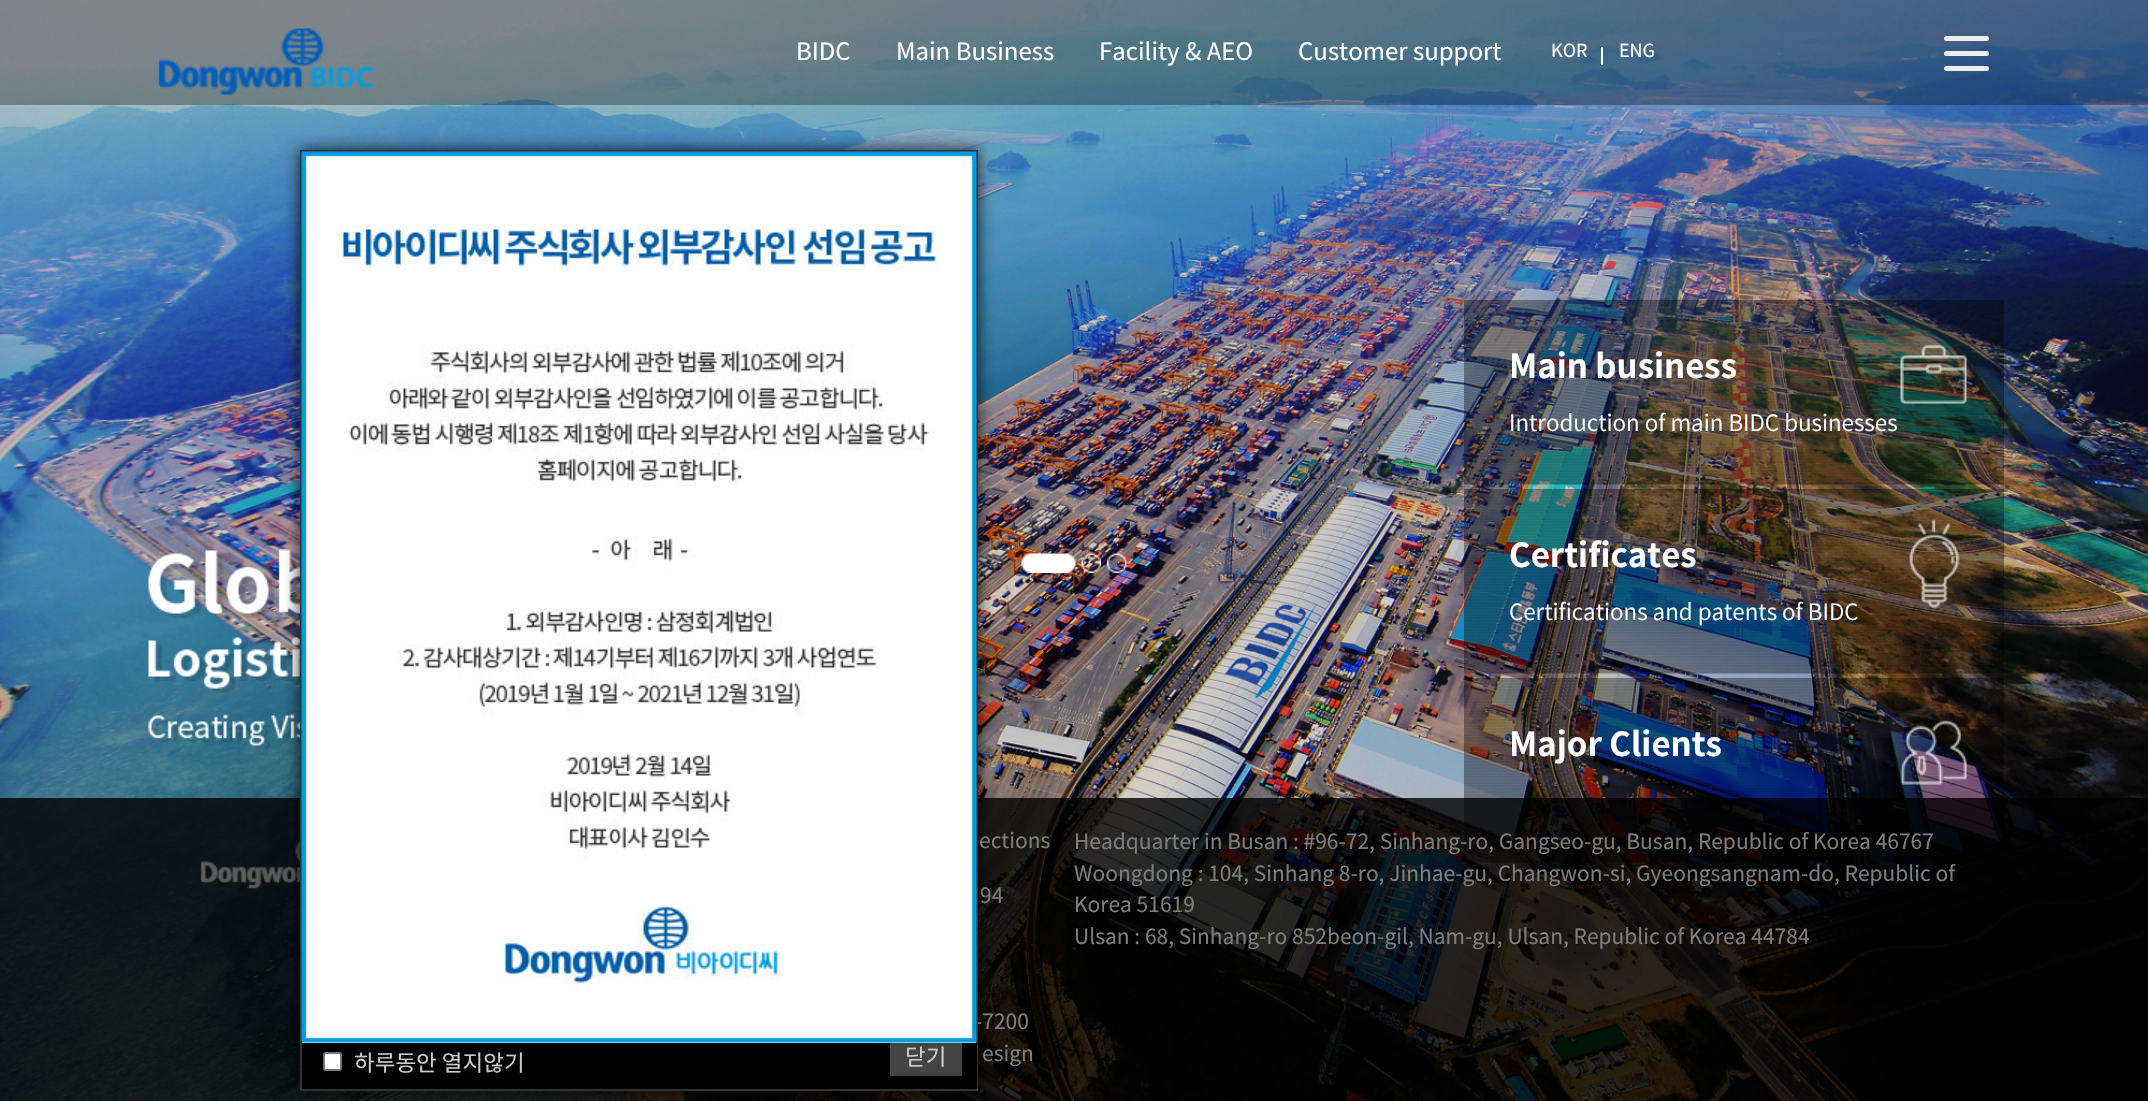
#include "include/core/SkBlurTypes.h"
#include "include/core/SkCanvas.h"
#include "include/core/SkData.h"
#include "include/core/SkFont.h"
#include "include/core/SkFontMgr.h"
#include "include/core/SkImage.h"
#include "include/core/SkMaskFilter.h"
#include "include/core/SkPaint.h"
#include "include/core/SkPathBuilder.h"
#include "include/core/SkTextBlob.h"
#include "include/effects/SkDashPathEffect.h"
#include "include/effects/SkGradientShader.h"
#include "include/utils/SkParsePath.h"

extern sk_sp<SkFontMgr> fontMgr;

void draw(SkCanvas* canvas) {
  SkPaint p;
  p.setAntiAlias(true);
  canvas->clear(SK_ColorWHITE);
  canvas->drawImageRect(SkImages::DeferredFromEncodedData(SkData::MakeFromFileName("images/2.png")), SkRect::MakeLTRB(0, 0, 2148, 1101), SkSamplingOptions());
  p.setColor(SkColorSetARGB(77, 0, 0, 0));
  canvas->drawRect(SkRect::MakeLTRB(0, 0, 2148, 105), p);
  canvas->drawImageRect(SkImages::DeferredFromEncodedData(SkData::MakeFromFileName("images/1.png")), SkRect::MakeLTRB(158, 28, 373, 95), SkSamplingOptions());
  p.setColor(SK_ColorWHITE);
  canvas->drawRect(SkRect::MakeLTRB(1601, 47, 1603, 65), p);
  p.setColor(SkColorSetRGB(237, 237, 237));
  canvas->drawRoundRect(SkRect::MakeLTRB(1944, 51, 1989, 56), 2.5f, 2.5f, p);
  canvas->drawRoundRect(SkRect::MakeLTRB(1944, 36, 1989, 41), 2.5f, 2.5f, p);
  canvas->drawRoundRect(SkRect::MakeLTRB(1944, 66, 1989, 71), 2.5f, 2.5f, p);
  canvas->drawImageRect(SkImages::DeferredFromEncodedData(SkData::MakeFromFileName("images/3.png")), SkRect::MakeLTRB(1021, 553, 1076, 573), SkSamplingOptions());
  canvas->drawImageRect(SkImages::DeferredFromEncodedData(SkData::MakeFromFileName("images/4.png")), SkRect::MakeLTRB(1081, 553, 1101, 573), SkSamplingOptions());
  canvas->drawImageRect(SkImages::DeferredFromEncodedData(SkData::MakeFromFileName("images/5.png")), SkRect::MakeLTRB(1107, 553, 1127, 573), SkSamplingOptions());
  canvas->drawImageRect(SkImages::DeferredFromEncodedData(SkData::MakeFromFileName("images/6.png")), SkRect::MakeLTRB(148, 549, 300, 749), SkSamplingOptions());
  canvas->drawImageRect(SkImages::DeferredFromEncodedData(SkData::MakeFromFileName("images/7.png")), SkRect::MakeLTRB(1464, 300, 2004, 485), SkSamplingOptions());
  canvas->drawImageRect(SkImages::DeferredFromEncodedData(SkData::MakeFromFileName("images/8.png")), SkRect::MakeLTRB(1900, 344, 1967, 404), SkSamplingOptions());
  canvas->drawImageRect(SkImages::DeferredFromEncodedData(SkData::MakeFromFileName("images/9.png")), SkRect::MakeLTRB(1464, 489, 2004, 674), SkSamplingOptions());
  canvas->drawImageRect(SkImages::DeferredFromEncodedData(SkData::MakeFromFileName("images/10.png")), SkRect::MakeLTRB(1909, 519, 1960, 608), SkSamplingOptions());
  canvas->drawImageRect(SkImages::DeferredFromEncodedData(SkData::MakeFromFileName("images/11.png")), SkRect::MakeLTRB(1464, 678, 2004, 863), SkSamplingOptions());
  canvas->drawImageRect(SkImages::DeferredFromEncodedData(SkData::MakeFromFileName("images/12.png")), SkRect::MakeLTRB(1900, 720, 1967, 785), SkSamplingOptions());
  p.setColor(SkColorSetARGB(204, 0, 0, 0));
  canvas->drawRect(SkRect::MakeLTRB(0, 798, 2148, 1101), p);
  canvas->drawImageRect(SkImages::DeferredFromEncodedData(SkData::MakeFromFileName("images/14.png")), SkRect::MakeLTRB(200, 840, 300, 889), SkSamplingOptions());
  p.setMaskFilter(SkMaskFilter::MakeBlur(kNormal_SkBlurStyle, 7.5f));
  canvas->drawRect(SkRect::MakeLTRB(300, 150, 978, 1091), p);
  p.setMaskFilter(nullptr);
  p.setColor(SK_ColorWHITE);
  canvas->drawRect(SkRect::MakeLTRB(302, 1042, 976, 1043), p);
  SkFont font1(fontMgr->matchFamilyStyle("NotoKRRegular", SkFontStyle::Normal()), 24);
  font1.setSubpixel(true);
  canvas->drawString("BIDC", 796, 60, font1, p);
  canvas->drawString("Main Business", 896, 60, font1, p);
  canvas->drawString("Facility & AEO", 1099, 60, font1, p);
  canvas->drawString("Customer support", 1298, 60, font1, p);
  SkFont font2(fontMgr->matchFamilyStyle("NotoKRRegular", SkFontStyle::Normal()), 18);
  font2.setSubpixel(true);
  canvas->drawString("KOR", 1551, 57, font2, p);
  canvas->drawString("ENG", 1619, 57, font2, p);
  SkFont font3(fontMgr->matchFamilyStyle("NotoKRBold", SkFontStyle::Bold()), 33);
  font3.setSubpixel(true);
  canvas->drawString("Main business", 1509, 378, font3, p);
  SkFont font4(fontMgr->matchFamilyStyle("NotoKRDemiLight", SkFontStyle(300, SkFontStyle::kNormal_Width, SkFontStyle::kUpright_Slant)), 22.5f);
  font4.setSubpixel(true);
  canvas->drawString("Introduction of main BIDC businesses", 1509, 431, font4, p);
  canvas->drawString("Certificates", 1509, 567, font3, p);
  canvas->drawString("Certifications and patents of BIDC", 1509, 620, font4, p);
  canvas->drawString("Major Clients", 1509, 756, font3, p);
  SkFont font5(fontMgr->matchFamilyStyle("NotoKRRegular", SkFontStyle::Normal()), 21);
  font5.setSubpixel(true);
  p.setColor(SkColorSetRGB(125, 125, 125));
  canvas->drawString("ections", 979, 848, font5, p);
  canvas->drawString("94", 980, 903, font5, p);
  canvas->drawString("-7200", 975, 1029, font5, p);
  p.setStyle(SkPaint::kStroke_Style);
  p.setStrokeWidth(2);
  p.setColor(SkColorSetRGB(51, 51, 51));
  canvas->drawRect(SkRect::MakeLTRB(301, 151, 977, 1090), p);
  canvas->drawImageRect(SkImages::DeferredFromEncodedData(SkData::MakeFromFileName("images/13.png")), SkRect::MakeLTRB(301, 151, 977, 1043), SkSamplingOptions());
  p.setStyle(SkPaint::kFill_Style);
  p.setColor(SK_ColorBLACK);
  canvas->drawRect(SkRect::MakeLTRB(302, 1043, 977, 1089), p);
  p.setColor(SkColorSetRGB(68, 68, 68));
  canvas->drawRect(SkRect::MakeLTRB(890, 1043, 962, 1076), p);
  SkFont font6(fontMgr->matchFamilyStyle("NotoKRRegular", SkFontStyle::Normal()), 22.5f);
  font6.setSubpixel(true);
  p.setColor(SkColorSetRGB(204, 204, 204));
  canvas->drawString("닫기", 905, 1065, font6, p);
  canvas->drawString("하루동안 열지않기", 354, 1071, font6, p);
  p.setColor(SK_ColorWHITE);
  canvas->drawRoundRect(SkRect::MakeLTRB(324, 1053, 341, 1070), 2, 2, p);
  p.setStyle(SkPaint::kStroke_Style);
  p.setColor(SkColorSetRGB(118, 118, 118));
  canvas->drawRoundRect(SkRect::MakeLTRB(324, 1053, 341, 1070), 2, 2, p);
  p.setStyle(SkPaint::kFill_Style);
  p.setColor(SkColorSetRGB(125, 125, 125));
  canvas->drawString("esign", 982, 1061, font5, p);
  canvas->drawString("Headquarter in Busan : #96-72, Sinhang-ro, Gangseo-gu, Busan, Republic of Korea 46767", 1074, 849, font5, p);
  canvas->drawString("Woongdong : 104, Sinhang 8-ro, Jinhae-gu, Changwon-si, Gyeongsangnam-do, Republic of", 1074, 881, font5, p);
  canvas->drawString("Korea 51619", 1074, 912, font5, p);
  canvas->drawString("Ulsan : 68, Sinhang-ro 852beon-gil, Nam-gu, Ulsan, Republic of Korea 44784", 1074, 944, font5, p);
}
